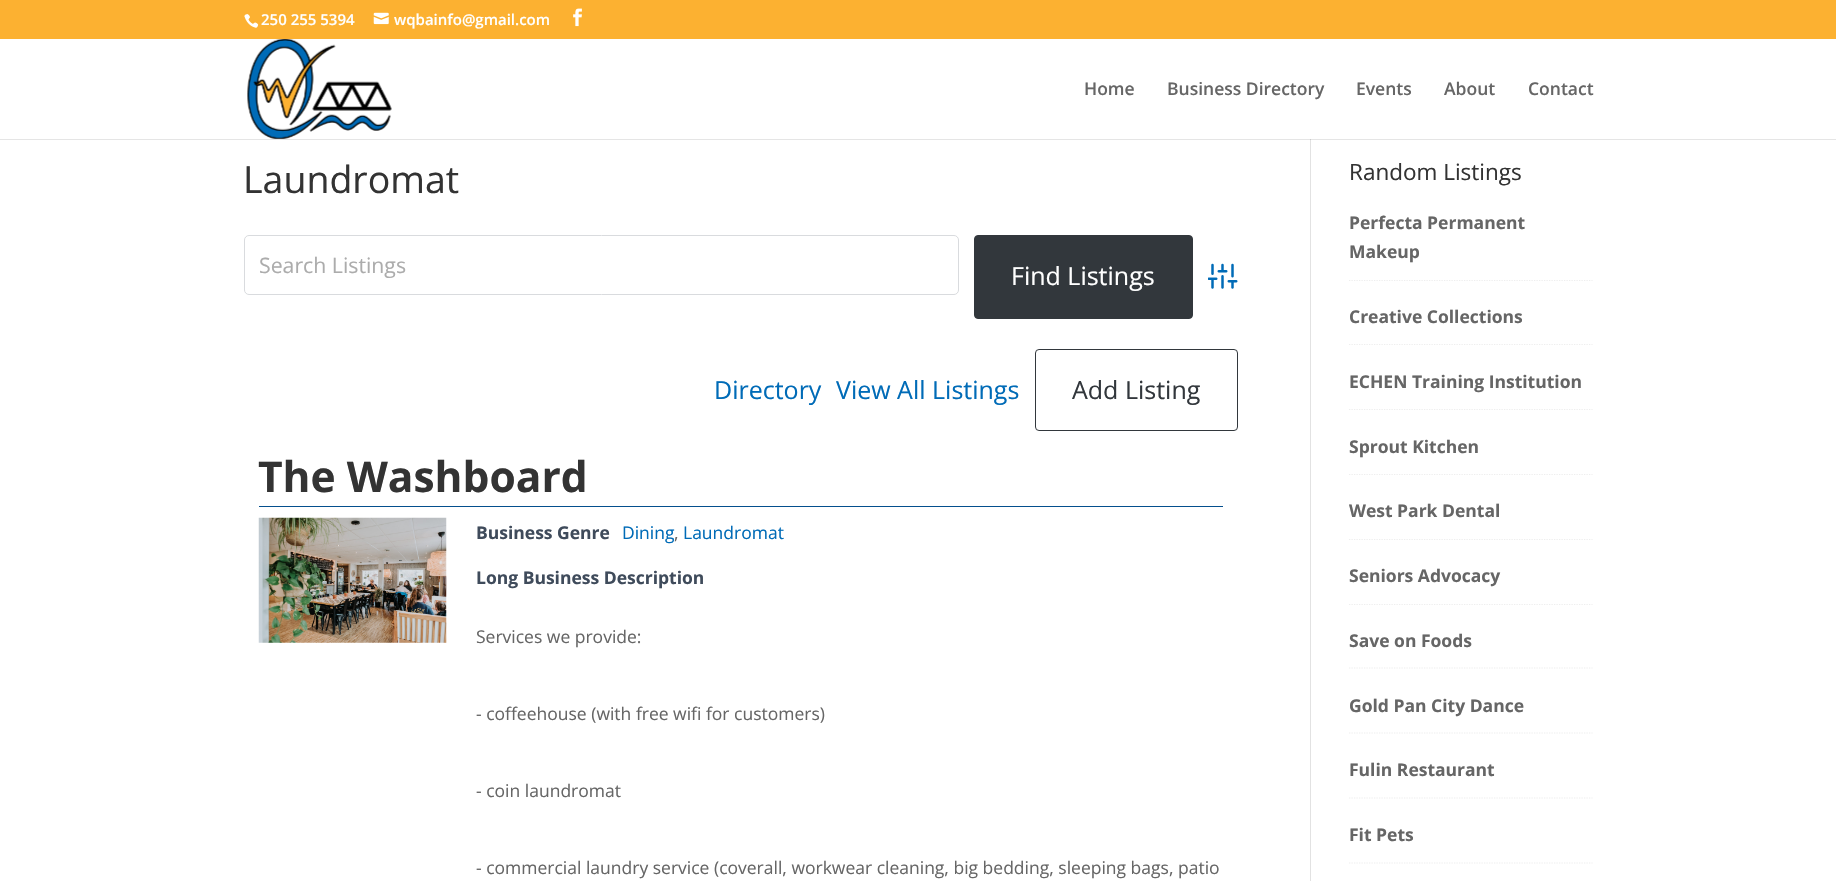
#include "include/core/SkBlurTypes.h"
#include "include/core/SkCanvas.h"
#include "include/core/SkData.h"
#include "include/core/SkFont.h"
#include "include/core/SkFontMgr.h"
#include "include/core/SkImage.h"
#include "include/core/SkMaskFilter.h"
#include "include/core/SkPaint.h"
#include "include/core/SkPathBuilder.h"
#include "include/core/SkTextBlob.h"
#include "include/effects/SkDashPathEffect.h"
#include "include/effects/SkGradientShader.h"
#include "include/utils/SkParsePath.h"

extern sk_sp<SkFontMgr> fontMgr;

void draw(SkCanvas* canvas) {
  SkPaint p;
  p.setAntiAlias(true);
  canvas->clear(SK_ColorWHITE);
  p.setColor(SkColorSetRGB(252, 177, 49));
  canvas->drawRect(SkRect::MakeLTRB(0, 0, 1836, 39), p);
  canvas->drawImageRect(SkImages::DeferredFromEncodedData(SkData::MakeFromFileName("images/1.png")), SkRect::MakeLTRB(244, 14, 259, 28), SkSamplingOptions());
  canvas->drawImageRect(SkImages::DeferredFromEncodedData(SkData::MakeFromFileName("images/2.png")), SkRect::MakeLTRB(373, 12, 389, 25), SkSamplingOptions());
  canvas->drawImageRect(SkImages::DeferredFromEncodedData(SkData::MakeFromFileName("images/3.png")), SkRect::MakeLTRB(573, 8, 582, 27), SkSamplingOptions());
  p.setColor(SkColorSetRGB(226, 226, 226));
  canvas->drawRect(SkRect::MakeLTRB(1310, 139, 1311, 881), p);
  p.setColor(SkColorSetARGB(26, 0, 0, 0));
  canvas->drawRect(SkRect::MakeLTRB(0, 139, 1836, 140), p);
  canvas->drawImageRect(SkImages::DeferredFromEncodedData(SkData::MakeFromFileName("images/4.png")), SkRect::MakeLTRB(247, 39, 392, 139), SkSamplingOptions());
  p.setStyle(SkPaint::kStroke_Style);
  p.setStrokeWidth(1);
  p.setColor(SkColorSetRGB(217, 219, 222));
  canvas->drawRoundRect(SkRect::MakeLTRB(244.5f, 235.5f, 958.5f, 294.5f), 4.5f, 4.5f, p);
  p.setStyle(SkPaint::kFill_Style);
  p.setColor(SkColorSetRGB(50, 55, 60));
  canvas->drawRoundRect(SkRect::MakeLTRB(974.5f, 235.5f, 1192.5f, 318.5f), 3.5f, 3.5f, p);
  p.setStyle(SkPaint::kStroke_Style);
  canvas->drawRoundRect(SkRect::MakeLTRB(974.5f, 235.5f, 1192.5f, 318.5f), 3.5f, 3.5f, p);
  canvas->drawImageRect(SkImages::DeferredFromEncodedData(SkData::MakeFromFileName("images/5.png")), SkRect::MakeLTRB(1208, 263, 1238, 289), SkSamplingOptions());
  canvas->drawRoundRect(SkRect::MakeLTRB(1035.5f, 349.5f, 1237.5f, 430.5f), 3.5f, 3.5f, p);
  p.setStyle(SkPaint::kFill_Style);
  p.setColor(SkColorSetRGB(4, 79, 141));
  canvas->drawRect(SkRect::MakeLTRB(259, 506, 1223, 507), p);
  canvas->drawImageRect(SkImages::DeferredFromEncodedData(SkData::MakeFromFileName("images/6.png")), SkRect::MakeLTRB(258, 517, 447, 643), SkSamplingOptions());
  p.setStyle(SkPaint::kStroke_Style);
  p.setStrokeWidth(1.2f);
  p.setColor(SkColorSetRGB(238, 238, 238));
  p.setPathEffect(SkDashPathEffect::Make({{1.25f, 1.25f}}, 0));
  canvas->drawPath(SkPathBuilder().moveTo(1349, 280.5f).lineTo(1592.5f, 280.5f).detach(), p);
  p.setPathEffect(nullptr);
  p.setPathEffect(SkDashPathEffect::Make({{1.25f, 1.25f}}, 0));
  canvas->drawPath(SkPathBuilder().moveTo(1349, 344.5f).lineTo(1592.5f, 344.5f).detach(), p);
  p.setPathEffect(nullptr);
  p.setPathEffect(SkDashPathEffect::Make({{1.25f, 1.25f}}, 0));
  canvas->drawPath(SkPathBuilder().moveTo(1349, 409.5f).lineTo(1592.5f, 409.5f).detach(), p);
  p.setPathEffect(nullptr);
  p.setPathEffect(SkDashPathEffect::Make({{1.25f, 1.25f}}, 0));
  canvas->drawPath(SkPathBuilder().moveTo(1349, 474.5f).lineTo(1592.5f, 474.5f).detach(), p);
  p.setPathEffect(nullptr);
  p.setPathEffect(SkDashPathEffect::Make({{1.25f, 1.25f}}, 0));
  canvas->drawPath(SkPathBuilder().moveTo(1349, 539.5f).lineTo(1592.5f, 539.5f).detach(), p);
  p.setPathEffect(nullptr);
  p.setPathEffect(SkDashPathEffect::Make({{1.25f, 1.25f}}, 0));
  canvas->drawPath(SkPathBuilder().moveTo(1349, 604.5f).lineTo(1592.5f, 604.5f).detach(), p);
  p.setPathEffect(nullptr);
  p.setPathEffect(SkDashPathEffect::Make({{1.25f, 1.25f}}, 0));
  canvas->drawPath(SkPathBuilder().moveTo(1349, 668).lineTo(1592.5f, 668).detach(), p);
  p.setPathEffect(nullptr);
  p.setPathEffect(SkDashPathEffect::Make({{1.25f, 1.25f}}, 0));
  canvas->drawPath(SkPathBuilder().moveTo(1349, 733).lineTo(1592.5f, 733).detach(), p);
  p.setPathEffect(nullptr);
  p.setPathEffect(SkDashPathEffect::Make({{1.25f, 1.25f}}, 0));
  canvas->drawPath(SkPathBuilder().moveTo(1349, 798).lineTo(1592.5f, 798).detach(), p);
  p.setPathEffect(nullptr);
  p.setPathEffect(SkDashPathEffect::Make({{1.25f, 1.25f}}, 0));
  canvas->drawPath(SkPathBuilder().moveTo(1349, 863).lineTo(1592.5f, 863).detach(), p);
  p.setPathEffect(nullptr);
  SkFont font1(fontMgr->matchFamilyStyle("Open Sans", SkFontStyle(600, SkFontStyle::kNormal_Width, SkFontStyle::kUpright_Slant)), 15);
  font1.setSubpixel(true);
  p.setStyle(SkPaint::kFill_Style);
  p.setColor(SK_ColorWHITE);
  canvas->drawString("250 255 5394", 261, 25, font1, p);
  canvas->drawString("wqbainfo@gmail.com", 394, 25, font1, p);
  SkFont font2(fontMgr->matchFamilyStyle("Open Sans", SkFontStyle(600, SkFontStyle::kNormal_Width, SkFontStyle::kUpright_Slant)), 17.5f);
  font2.setSubpixel(true);
  p.setColor(SkColorSetRGB(102, 102, 102));
  canvas->drawString("Home", 1084, 95, font2, p);
  canvas->drawString("Business Directory", 1167, 95, font2, p);
  canvas->drawString("Events", 1356, 95, font2, p);
  canvas->drawString("About", 1444, 95, font2, p);
  canvas->drawString("Contact", 1528, 95, font2, p);
  SkFont font3(fontMgr->matchFamilyStyle("Open Sans", SkFontStyle::Normal()), 37.5f);
  font3.setSubpixel(true);
  p.setColor(SkColorSetRGB(51, 51, 51));
  canvas->drawString("Laundromat", 243, 193, font3, p);
  SkFont font4(fontMgr->matchFamilyStyle("Open Sans", SkFontStyle::Normal()), 21.25f);
  font4.setSubpixel(true);
  p.setColor(SkColorSetRGB(172, 172, 172));
  canvas->drawString("Search Listings", 259, 273, font4, p);
  SkFont font5(fontMgr->matchFamilyStyle("Open Sans", SkFontStyle::Normal()), 25);
  font5.setSubpixel(true);
  p.setColor(SK_ColorWHITE);
  canvas->drawString("Find Listings", 1011, 285, font5, p);
  p.setColor(SkColorSetRGB(0, 107, 183));
  canvas->drawString("Directory", 714, 399, font5, p);
  canvas->drawString("View All Listings", 836, 399, font5, p);
  p.setColor(SkColorSetRGB(50, 55, 60));
  canvas->drawString("Add Listing", 1072, 399, font5, p);
  SkFont font6(fontMgr->matchFamilyStyle("Open Sans", SkFontStyle::Bold()), 42.5f);
  font6.setSubpixel(true);
  p.setColor(SkColorSetRGB(51, 51, 51));
  canvas->drawString("The Washboard", 258, 492, font6, p);
  SkFont font7(fontMgr->matchFamilyStyle("Open Sans", SkFontStyle::Bold()), 17.5f);
  font7.setSubpixel(true);
  p.setColor(SkColorSetRGB(63, 75, 91));
  canvas->drawString("Business Genre", 476, 539, font7, p);
  SkFont font8(fontMgr->matchFamilyStyle("Open Sans", SkFontStyle::Normal()), 17.5f);
  font8.setSubpixel(true);
  p.setColor(SkColorSetRGB(0, 107, 183));
  canvas->drawString("Dining", 622, 539, font8, p);
  p.setColor(SkColorSetRGB(102, 102, 102));
  canvas->drawString(",", 674, 539, font8, p);
  p.setColor(SkColorSetRGB(0, 107, 183));
  canvas->drawString("Laundromat", 683, 539, font8, p);
  p.setColor(SkColorSetRGB(63, 75, 91));
  canvas->drawString("Long Business Description", 476, 584, font7, p);
  p.setColor(SkColorSetRGB(102, 102, 102));
  canvas->drawString("Services we provide:", 476, 643, font8, p);
  canvas->drawString("- coffeehouse (with free wifi for customers)", 476, 720, font8, p);
  canvas->drawString("- coin laundromat", 476, 797, font8, p);
  canvas->drawString("- commercial laundry service (coverall, workwear cleaning, big bedding, sleeping bags, patio", 476, 874, font8, p);
  SkFont font9(fontMgr->matchFamilyStyle("Open Sans", SkFontStyle::Normal()), 22.5f);
  font9.setSubpixel(true);
  p.setColor(SkColorSetRGB(51, 51, 51));
  canvas->drawString("Random Listings", 1349, 180, font9, p);
  p.setColor(SkColorSetRGB(102, 102, 102));
  canvas->drawString("Perfecta Permanent", 1349, 229, font7, p);
  canvas->drawString("Makeup", 1349, 258, font7, p);
  canvas->drawString("Creative Collections", 1349, 323, font7, p);
  canvas->drawString("ECHEN Training Institution", 1349, 388, font7, p);
  canvas->drawString("Sprout Kitchen", 1349, 453, font7, p);
  canvas->drawString("West Park Dental", 1349, 517, font7, p);
  canvas->drawString("Seniors Advocacy", 1349, 582, font7, p);
  canvas->drawString("Save on Foods", 1349, 647, font7, p);
  canvas->drawString("Gold Pan City Dance", 1349, 712, font7, p);
  canvas->drawString("Fulin Restaurant", 1349, 776, font7, p);
  canvas->drawString("Fit Pets", 1349, 841, font7, p);
}
